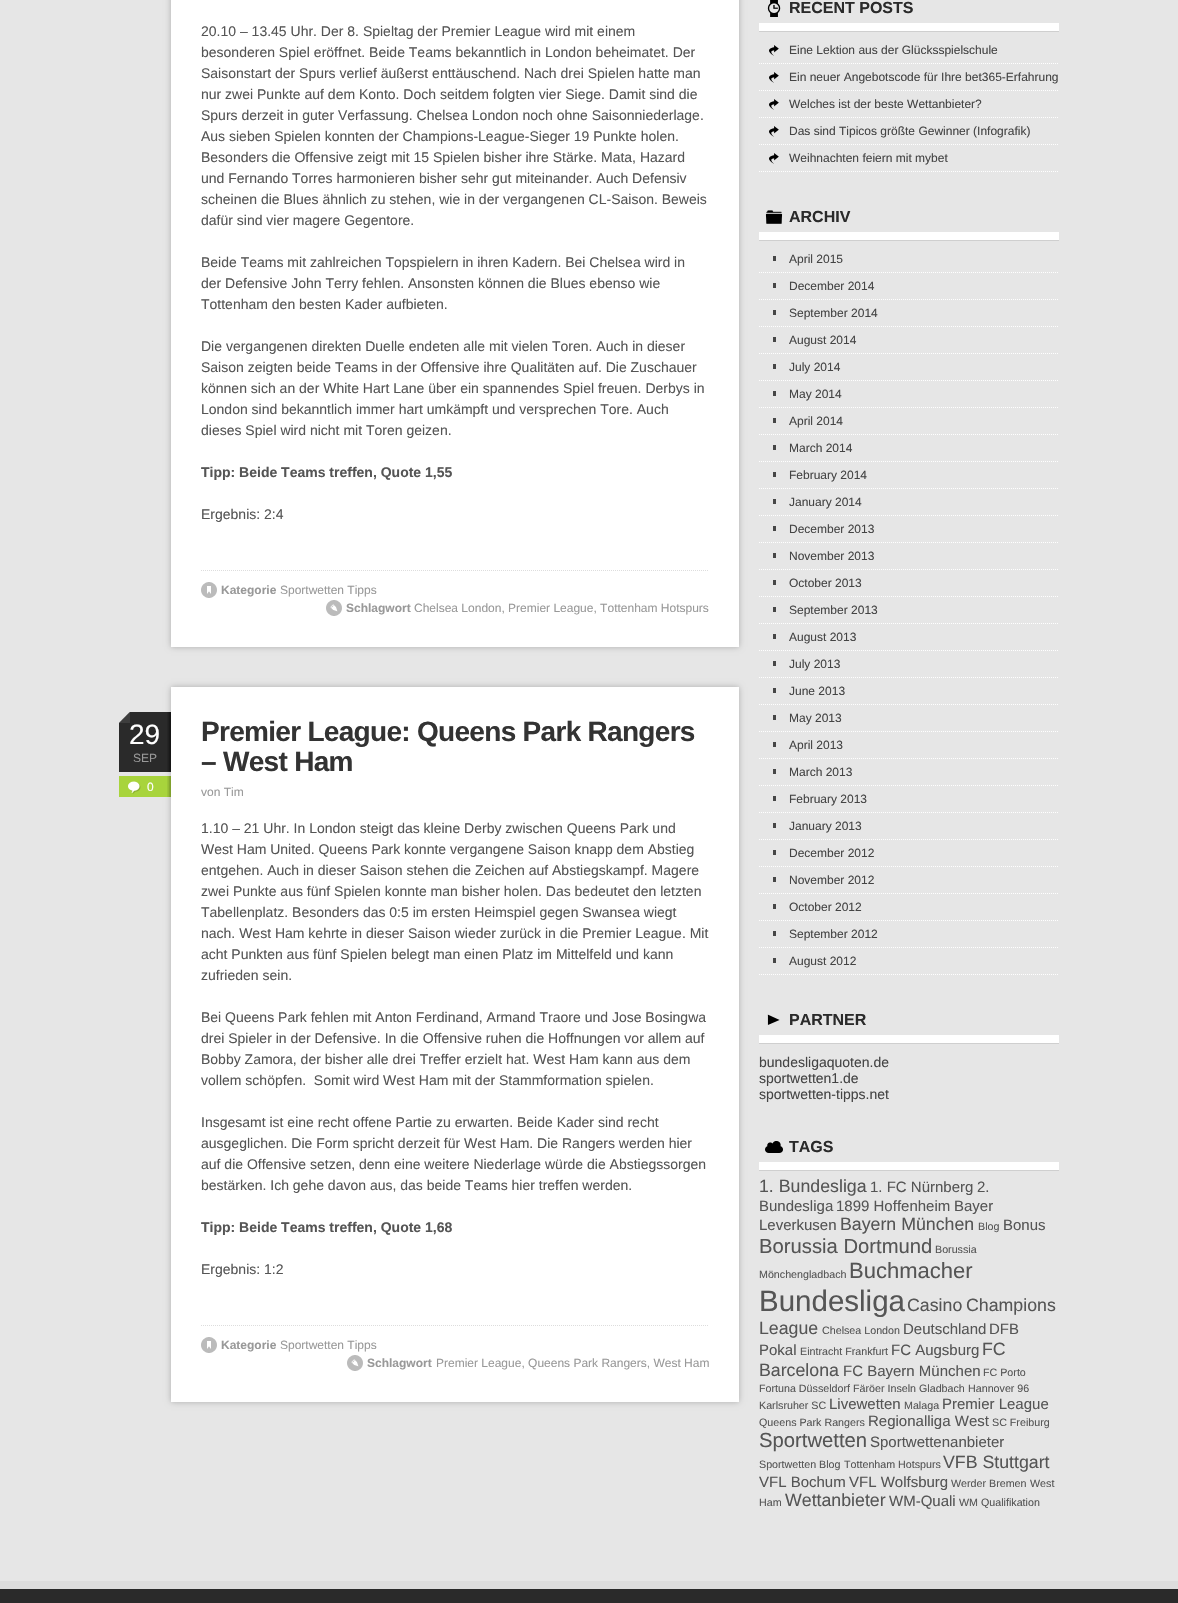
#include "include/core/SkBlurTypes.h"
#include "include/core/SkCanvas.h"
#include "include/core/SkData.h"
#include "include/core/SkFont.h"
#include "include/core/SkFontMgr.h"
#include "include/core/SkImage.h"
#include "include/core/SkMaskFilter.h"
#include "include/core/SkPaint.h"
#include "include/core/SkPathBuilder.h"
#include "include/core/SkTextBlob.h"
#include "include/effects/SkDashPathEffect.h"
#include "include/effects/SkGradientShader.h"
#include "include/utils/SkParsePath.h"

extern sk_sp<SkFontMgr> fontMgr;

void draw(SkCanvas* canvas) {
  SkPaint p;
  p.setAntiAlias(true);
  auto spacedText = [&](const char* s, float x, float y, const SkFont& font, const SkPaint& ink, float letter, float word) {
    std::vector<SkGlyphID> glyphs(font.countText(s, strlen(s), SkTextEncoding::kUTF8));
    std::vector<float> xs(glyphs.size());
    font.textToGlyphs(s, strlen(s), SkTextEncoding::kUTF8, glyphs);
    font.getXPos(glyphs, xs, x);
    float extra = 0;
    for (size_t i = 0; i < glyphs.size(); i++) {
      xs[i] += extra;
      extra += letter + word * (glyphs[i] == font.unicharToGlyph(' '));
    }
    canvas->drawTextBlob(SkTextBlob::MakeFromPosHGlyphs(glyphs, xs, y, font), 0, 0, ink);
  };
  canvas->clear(SkColorSetRGB(230, 230, 230));
  p.setColor(SkColorSetARGB(64, 0, 0, 0));
  p.setMaskFilter(SkMaskFilter::MakeBlur(kNormal_SkBlurStyle, 3));
  canvas->drawRect(SkRect::MakeLTRB(171, -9, 739, 647), p);
  p.setMaskFilter(nullptr);
  p.setColor(SK_ColorWHITE);
  canvas->drawRect(SkRect::MakeLTRB(171, 0, 739, 647), p);
  p.setStyle(SkPaint::kStroke_Style);
  p.setStrokeWidth(1);
  p.setColor(SkColorSetRGB(221, 221, 221));
  p.setPathEffect(SkDashPathEffect::Make({{1, 1}}, 0));
  canvas->drawPath(SkPathBuilder().moveTo(201, 570.5f).lineTo(709, 570.5f).detach(), p);
  p.setPathEffect(nullptr);
  canvas->drawImageRect(SkImages::DeferredFromEncodedData(SkData::MakeFromFileName("images/1.png")), SkRect::MakeLTRB(201, 582, 217, 598), SkSamplingOptions());
  canvas->drawImageRect(SkImages::DeferredFromEncodedData(SkData::MakeFromFileName("images/2.png")), SkRect::MakeLTRB(326, 600, 342, 616), SkSamplingOptions());
  p.setStyle(SkPaint::kFill_Style);
  p.setColor(SkColorSetARGB(64, 0, 0, 0));
  p.setMaskFilter(SkMaskFilter::MakeBlur(kNormal_SkBlurStyle, 3));
  canvas->drawRect(SkRect::MakeLTRB(171, 687, 739, 1402), p);
  p.setMaskFilter(nullptr);
  p.setColor(SK_ColorWHITE);
  canvas->drawRect(SkRect::MakeLTRB(171, 687, 739, 1402), p);
  canvas->drawImageRect(SkImages::DeferredFromEncodedData(SkData::MakeFromFileName("images/3.png")), SkRect::MakeLTRB(119, 712, 171, 772), SkSamplingOptions());
  p.setColor(SkColorSetRGB(168, 212, 60));
  canvas->drawRect(SkRect::MakeLTRB(119, 776, 171, 797), p);
  canvas->drawImageRect(SkImages::DeferredFromEncodedData(SkData::MakeFromFileName("images/4.png")), SkRect::MakeLTRB(128, 776, 171, 797), SkSamplingOptions());
  p.setStyle(SkPaint::kStroke_Style);
  p.setColor(SkColorSetRGB(221, 221, 221));
  p.setPathEffect(SkDashPathEffect::Make({{1, 1}}, 0));
  canvas->drawPath(SkPathBuilder().moveTo(201, 1325.5f).lineTo(709, 1325.5f).detach(), p);
  p.setPathEffect(nullptr);
  canvas->drawImageRect(SkImages::DeferredFromEncodedData(SkData::MakeFromFileName("images/1.png")), SkRect::MakeLTRB(201, 1337, 217, 1353), SkSamplingOptions());
  canvas->drawImageRect(SkImages::DeferredFromEncodedData(SkData::MakeFromFileName("images/2.png")), SkRect::MakeLTRB(347, 1355, 363, 1371), SkSamplingOptions());
  p.setStyle(SkPaint::kFill_Style);
  p.setColor(SkColorSetRGB(207, 207, 207));
  canvas->drawRect(SkRect::MakeLTRB(759, 31, 1059, 32), p);
  canvas->drawImageRect(SkImages::DeferredFromEncodedData(SkData::MakeFromFileName("images/5.png")), SkRect::MakeLTRB(767, 0, 781, 17), SkSamplingOptions());
  p.setColor(SK_ColorWHITE);
  canvas->drawRect(SkRect::MakeLTRB(759, 23, 1059, 31), p);
  p.setStyle(SkPaint::kStroke_Style);
  p.setPathEffect(SkDashPathEffect::Make({{1, 1}}, 0));
  canvas->drawPath(SkPathBuilder().moveTo(759, 63.5f).lineTo(1059, 63.5f).detach(), p);
  p.setPathEffect(nullptr);
  canvas->drawImageRect(SkImages::DeferredFromEncodedData(SkData::MakeFromFileName("images/6.png")), SkRect::MakeLTRB(769, 45, 779, 56), SkSamplingOptions());
  p.setPathEffect(SkDashPathEffect::Make({{1, 1}}, 0));
  canvas->drawPath(SkPathBuilder().moveTo(759, 90.5f).lineTo(1059, 90.5f).detach(), p);
  p.setPathEffect(nullptr);
  canvas->drawImageRect(SkImages::DeferredFromEncodedData(SkData::MakeFromFileName("images/6.png")), SkRect::MakeLTRB(769, 72, 779, 83), SkSamplingOptions());
  p.setPathEffect(SkDashPathEffect::Make({{1, 1}}, 0));
  canvas->drawPath(SkPathBuilder().moveTo(759, 117.5f).lineTo(1059, 117.5f).detach(), p);
  p.setPathEffect(nullptr);
  canvas->drawImageRect(SkImages::DeferredFromEncodedData(SkData::MakeFromFileName("images/6.png")), SkRect::MakeLTRB(769, 99, 779, 110), SkSamplingOptions());
  p.setPathEffect(SkDashPathEffect::Make({{1, 1}}, 0));
  canvas->drawPath(SkPathBuilder().moveTo(759, 144.5f).lineTo(1059, 144.5f).detach(), p);
  p.setPathEffect(nullptr);
  canvas->drawImageRect(SkImages::DeferredFromEncodedData(SkData::MakeFromFileName("images/6.png")), SkRect::MakeLTRB(769, 126, 779, 137), SkSamplingOptions());
  p.setPathEffect(SkDashPathEffect::Make({{1, 1}}, 0));
  canvas->drawPath(SkPathBuilder().moveTo(759, 171.5f).lineTo(1059, 171.5f).detach(), p);
  p.setPathEffect(nullptr);
  canvas->drawImageRect(SkImages::DeferredFromEncodedData(SkData::MakeFromFileName("images/6.png")), SkRect::MakeLTRB(769, 153, 779, 164), SkSamplingOptions());
  p.setStyle(SkPaint::kFill_Style);
  p.setColor(SkColorSetRGB(207, 207, 207));
  canvas->drawRect(SkRect::MakeLTRB(759, 240, 1059, 241), p);
  canvas->drawImageRect(SkImages::DeferredFromEncodedData(SkData::MakeFromFileName("images/7.png")), SkRect::MakeLTRB(765, 210, 783, 224), SkSamplingOptions());
  p.setColor(SK_ColorWHITE);
  canvas->drawRect(SkRect::MakeLTRB(759, 232, 1059, 240), p);
  p.setStyle(SkPaint::kStroke_Style);
  p.setPathEffect(SkDashPathEffect::Make({{1, 1}}, 0));
  canvas->drawPath(SkPathBuilder().moveTo(759, 272.5f).lineTo(1059, 272.5f).detach(), p);
  p.setPathEffect(nullptr);
  p.setStyle(SkPaint::kFill_Style);
  p.setColor(SkColorSetRGB(70, 70, 70));
  canvas->drawRect(SkRect::MakeLTRB(773, 256, 776, 261), p);
  p.setStyle(SkPaint::kStroke_Style);
  p.setColor(SK_ColorWHITE);
  p.setPathEffect(SkDashPathEffect::Make({{1, 1}}, 0));
  canvas->drawPath(SkPathBuilder().moveTo(759, 299.5f).lineTo(1059, 299.5f).detach(), p);
  p.setPathEffect(nullptr);
  p.setStyle(SkPaint::kFill_Style);
  p.setColor(SkColorSetRGB(70, 70, 70));
  canvas->drawRect(SkRect::MakeLTRB(773, 283, 776, 288), p);
  p.setStyle(SkPaint::kStroke_Style);
  p.setColor(SK_ColorWHITE);
  p.setPathEffect(SkDashPathEffect::Make({{1, 1}}, 0));
  canvas->drawPath(SkPathBuilder().moveTo(759, 326.5f).lineTo(1059, 326.5f).detach(), p);
  p.setPathEffect(nullptr);
  p.setStyle(SkPaint::kFill_Style);
  p.setColor(SkColorSetRGB(70, 70, 70));
  canvas->drawRect(SkRect::MakeLTRB(773, 310, 776, 315), p);
  p.setStyle(SkPaint::kStroke_Style);
  p.setColor(SK_ColorWHITE);
  p.setPathEffect(SkDashPathEffect::Make({{1, 1}}, 0));
  canvas->drawPath(SkPathBuilder().moveTo(759, 353.5f).lineTo(1059, 353.5f).detach(), p);
  p.setPathEffect(nullptr);
  p.setStyle(SkPaint::kFill_Style);
  p.setColor(SkColorSetRGB(70, 70, 70));
  canvas->drawRect(SkRect::MakeLTRB(773, 337, 776, 342), p);
  p.setStyle(SkPaint::kStroke_Style);
  p.setColor(SK_ColorWHITE);
  p.setPathEffect(SkDashPathEffect::Make({{1, 1}}, 0));
  canvas->drawPath(SkPathBuilder().moveTo(759, 380.5f).lineTo(1059, 380.5f).detach(), p);
  p.setPathEffect(nullptr);
  p.setStyle(SkPaint::kFill_Style);
  p.setColor(SkColorSetRGB(70, 70, 70));
  canvas->drawRect(SkRect::MakeLTRB(773, 364, 776, 369), p);
  p.setStyle(SkPaint::kStroke_Style);
  p.setColor(SK_ColorWHITE);
  p.setPathEffect(SkDashPathEffect::Make({{1, 1}}, 0));
  canvas->drawPath(SkPathBuilder().moveTo(759, 407.5f).lineTo(1059, 407.5f).detach(), p);
  p.setPathEffect(nullptr);
  p.setStyle(SkPaint::kFill_Style);
  p.setColor(SkColorSetRGB(70, 70, 70));
  canvas->drawRect(SkRect::MakeLTRB(773, 391, 776, 396), p);
  p.setStyle(SkPaint::kStroke_Style);
  p.setColor(SK_ColorWHITE);
  p.setPathEffect(SkDashPathEffect::Make({{1, 1}}, 0));
  canvas->drawPath(SkPathBuilder().moveTo(759, 434.5f).lineTo(1059, 434.5f).detach(), p);
  p.setPathEffect(nullptr);
  p.setStyle(SkPaint::kFill_Style);
  p.setColor(SkColorSetRGB(70, 70, 70));
  canvas->drawRect(SkRect::MakeLTRB(773, 418, 776, 423), p);
  p.setStyle(SkPaint::kStroke_Style);
  p.setColor(SK_ColorWHITE);
  p.setPathEffect(SkDashPathEffect::Make({{1, 1}}, 0));
  canvas->drawPath(SkPathBuilder().moveTo(759, 461.5f).lineTo(1059, 461.5f).detach(), p);
  p.setPathEffect(nullptr);
  p.setStyle(SkPaint::kFill_Style);
  p.setColor(SkColorSetRGB(70, 70, 70));
  canvas->drawRect(SkRect::MakeLTRB(773, 445, 776, 450), p);
  p.setStyle(SkPaint::kStroke_Style);
  p.setColor(SK_ColorWHITE);
  p.setPathEffect(SkDashPathEffect::Make({{1, 1}}, 0));
  canvas->drawPath(SkPathBuilder().moveTo(759, 488.5f).lineTo(1059, 488.5f).detach(), p);
  p.setPathEffect(nullptr);
  p.setStyle(SkPaint::kFill_Style);
  p.setColor(SkColorSetRGB(70, 70, 70));
  canvas->drawRect(SkRect::MakeLTRB(773, 472, 776, 477), p);
  p.setStyle(SkPaint::kStroke_Style);
  p.setColor(SK_ColorWHITE);
  p.setPathEffect(SkDashPathEffect::Make({{1, 1}}, 0));
  canvas->drawPath(SkPathBuilder().moveTo(759, 515.5f).lineTo(1059, 515.5f).detach(), p);
  p.setPathEffect(nullptr);
  p.setStyle(SkPaint::kFill_Style);
  p.setColor(SkColorSetRGB(70, 70, 70));
  canvas->drawRect(SkRect::MakeLTRB(773, 499, 776, 504), p);
  p.setStyle(SkPaint::kStroke_Style);
  p.setColor(SK_ColorWHITE);
  p.setPathEffect(SkDashPathEffect::Make({{1, 1}}, 0));
  canvas->drawPath(SkPathBuilder().moveTo(759, 542.5f).lineTo(1059, 542.5f).detach(), p);
  p.setPathEffect(nullptr);
  p.setStyle(SkPaint::kFill_Style);
  p.setColor(SkColorSetRGB(70, 70, 70));
  canvas->drawRect(SkRect::MakeLTRB(773, 526, 776, 531), p);
  p.setStyle(SkPaint::kStroke_Style);
  p.setColor(SK_ColorWHITE);
  p.setPathEffect(SkDashPathEffect::Make({{1, 1}}, 0));
  canvas->drawPath(SkPathBuilder().moveTo(759, 569.5f).lineTo(1059, 569.5f).detach(), p);
  p.setPathEffect(nullptr);
  p.setStyle(SkPaint::kFill_Style);
  p.setColor(SkColorSetRGB(70, 70, 70));
  canvas->drawRect(SkRect::MakeLTRB(773, 553, 776, 558), p);
  p.setStyle(SkPaint::kStroke_Style);
  p.setColor(SK_ColorWHITE);
  p.setPathEffect(SkDashPathEffect::Make({{1, 1}}, 0));
  canvas->drawPath(SkPathBuilder().moveTo(759, 596.5f).lineTo(1059, 596.5f).detach(), p);
  p.setPathEffect(nullptr);
  p.setStyle(SkPaint::kFill_Style);
  p.setColor(SkColorSetRGB(70, 70, 70));
  canvas->drawRect(SkRect::MakeLTRB(773, 580, 776, 585), p);
  p.setStyle(SkPaint::kStroke_Style);
  p.setColor(SK_ColorWHITE);
  p.setPathEffect(SkDashPathEffect::Make({{1, 1}}, 0));
  canvas->drawPath(SkPathBuilder().moveTo(759, 623.5f).lineTo(1059, 623.5f).detach(), p);
  p.setPathEffect(nullptr);
  p.setStyle(SkPaint::kFill_Style);
  p.setColor(SkColorSetRGB(70, 70, 70));
  canvas->drawRect(SkRect::MakeLTRB(773, 607, 776, 612), p);
  p.setStyle(SkPaint::kStroke_Style);
  p.setColor(SK_ColorWHITE);
  p.setPathEffect(SkDashPathEffect::Make({{1, 1}}, 0));
  canvas->drawPath(SkPathBuilder().moveTo(759, 650.5f).lineTo(1059, 650.5f).detach(), p);
  p.setPathEffect(nullptr);
  p.setStyle(SkPaint::kFill_Style);
  p.setColor(SkColorSetRGB(70, 70, 70));
  canvas->drawRect(SkRect::MakeLTRB(773, 634, 776, 639), p);
  p.setStyle(SkPaint::kStroke_Style);
  p.setColor(SK_ColorWHITE);
  p.setPathEffect(SkDashPathEffect::Make({{1, 1}}, 0));
  canvas->drawPath(SkPathBuilder().moveTo(759, 677.5f).lineTo(1059, 677.5f).detach(), p);
  p.setPathEffect(nullptr);
  p.setStyle(SkPaint::kFill_Style);
  p.setColor(SkColorSetRGB(70, 70, 70));
  canvas->drawRect(SkRect::MakeLTRB(773, 661, 776, 666), p);
  p.setStyle(SkPaint::kStroke_Style);
  p.setColor(SK_ColorWHITE);
  p.setPathEffect(SkDashPathEffect::Make({{1, 1}}, 0));
  canvas->drawPath(SkPathBuilder().moveTo(759, 704.5f).lineTo(1059, 704.5f).detach(), p);
  p.setPathEffect(nullptr);
  p.setStyle(SkPaint::kFill_Style);
  p.setColor(SkColorSetRGB(70, 70, 70));
  canvas->drawRect(SkRect::MakeLTRB(773, 688, 776, 693), p);
  p.setStyle(SkPaint::kStroke_Style);
  p.setColor(SK_ColorWHITE);
  p.setPathEffect(SkDashPathEffect::Make({{1, 1}}, 0));
  canvas->drawPath(SkPathBuilder().moveTo(759, 731.5f).lineTo(1059, 731.5f).detach(), p);
  p.setPathEffect(nullptr);
  p.setStyle(SkPaint::kFill_Style);
  p.setColor(SkColorSetRGB(70, 70, 70));
  canvas->drawRect(SkRect::MakeLTRB(773, 715, 776, 720), p);
  p.setStyle(SkPaint::kStroke_Style);
  p.setColor(SK_ColorWHITE);
  p.setPathEffect(SkDashPathEffect::Make({{1, 1}}, 0));
  canvas->drawPath(SkPathBuilder().moveTo(759, 758.5f).lineTo(1059, 758.5f).detach(), p);
  p.setPathEffect(nullptr);
  p.setStyle(SkPaint::kFill_Style);
  p.setColor(SkColorSetRGB(70, 70, 70));
  canvas->drawRect(SkRect::MakeLTRB(773, 742, 776, 747), p);
  p.setStyle(SkPaint::kStroke_Style);
  p.setColor(SK_ColorWHITE);
  p.setPathEffect(SkDashPathEffect::Make({{1, 1}}, 0));
  canvas->drawPath(SkPathBuilder().moveTo(759, 785.5f).lineTo(1059, 785.5f).detach(), p);
  p.setPathEffect(nullptr);
  p.setStyle(SkPaint::kFill_Style);
  p.setColor(SkColorSetRGB(70, 70, 70));
  canvas->drawRect(SkRect::MakeLTRB(773, 769, 776, 774), p);
  p.setStyle(SkPaint::kStroke_Style);
  p.setColor(SK_ColorWHITE);
  p.setPathEffect(SkDashPathEffect::Make({{1, 1}}, 0));
  canvas->drawPath(SkPathBuilder().moveTo(759, 812.5f).lineTo(1059, 812.5f).detach(), p);
  p.setPathEffect(nullptr);
  p.setStyle(SkPaint::kFill_Style);
  p.setColor(SkColorSetRGB(70, 70, 70));
  canvas->drawRect(SkRect::MakeLTRB(773, 796, 776, 801), p);
  p.setStyle(SkPaint::kStroke_Style);
  p.setColor(SK_ColorWHITE);
  p.setPathEffect(SkDashPathEffect::Make({{1, 1}}, 0));
  canvas->drawPath(SkPathBuilder().moveTo(759, 839.5f).lineTo(1059, 839.5f).detach(), p);
  p.setPathEffect(nullptr);
  p.setStyle(SkPaint::kFill_Style);
  p.setColor(SkColorSetRGB(70, 70, 70));
  canvas->drawRect(SkRect::MakeLTRB(773, 823, 776, 828), p);
  p.setStyle(SkPaint::kStroke_Style);
  p.setColor(SK_ColorWHITE);
  p.setPathEffect(SkDashPathEffect::Make({{1, 1}}, 0));
  canvas->drawPath(SkPathBuilder().moveTo(759, 866.5f).lineTo(1059, 866.5f).detach(), p);
  p.setPathEffect(nullptr);
  p.setStyle(SkPaint::kFill_Style);
  p.setColor(SkColorSetRGB(70, 70, 70));
  canvas->drawRect(SkRect::MakeLTRB(773, 850, 776, 855), p);
  p.setStyle(SkPaint::kStroke_Style);
  p.setColor(SK_ColorWHITE);
  p.setPathEffect(SkDashPathEffect::Make({{1, 1}}, 0));
  canvas->drawPath(SkPathBuilder().moveTo(759, 893.5f).lineTo(1059, 893.5f).detach(), p);
  p.setPathEffect(nullptr);
  p.setStyle(SkPaint::kFill_Style);
  p.setColor(SkColorSetRGB(70, 70, 70));
  canvas->drawRect(SkRect::MakeLTRB(773, 877, 776, 882), p);
  p.setStyle(SkPaint::kStroke_Style);
  p.setColor(SK_ColorWHITE);
  p.setPathEffect(SkDashPathEffect::Make({{1, 1}}, 0));
  canvas->drawPath(SkPathBuilder().moveTo(759, 920.5f).lineTo(1059, 920.5f).detach(), p);
  p.setPathEffect(nullptr);
  p.setStyle(SkPaint::kFill_Style);
  p.setColor(SkColorSetRGB(70, 70, 70));
  canvas->drawRect(SkRect::MakeLTRB(773, 904, 776, 909), p);
  p.setStyle(SkPaint::kStroke_Style);
  p.setColor(SK_ColorWHITE);
  p.setPathEffect(SkDashPathEffect::Make({{1, 1}}, 0));
  canvas->drawPath(SkPathBuilder().moveTo(759, 947.5f).lineTo(1059, 947.5f).detach(), p);
  p.setPathEffect(nullptr);
  p.setStyle(SkPaint::kFill_Style);
  p.setColor(SkColorSetRGB(70, 70, 70));
  canvas->drawRect(SkRect::MakeLTRB(773, 931, 776, 936), p);
  p.setStyle(SkPaint::kStroke_Style);
  p.setColor(SK_ColorWHITE);
  p.setPathEffect(SkDashPathEffect::Make({{1, 1}}, 0));
  canvas->drawPath(SkPathBuilder().moveTo(759, 974.5f).lineTo(1059, 974.5f).detach(), p);
  p.setPathEffect(nullptr);
  p.setStyle(SkPaint::kFill_Style);
  p.setColor(SkColorSetRGB(70, 70, 70));
  canvas->drawRect(SkRect::MakeLTRB(773, 958, 776, 963), p);
  p.setColor(SkColorSetRGB(207, 207, 207));
  canvas->drawRect(SkRect::MakeLTRB(759, 1043, 1059, 1044), p);
  canvas->drawImageRect(SkImages::DeferredFromEncodedData(SkData::MakeFromFileName("images/8.png")), SkRect::MakeLTRB(767, 1014, 780, 1025), SkSamplingOptions());
  p.setColor(SK_ColorWHITE);
  canvas->drawRect(SkRect::MakeLTRB(759, 1035, 1059, 1043), p);
  p.setColor(SkColorSetRGB(207, 207, 207));
  canvas->drawRect(SkRect::MakeLTRB(759, 1170, 1059, 1171), p);
  canvas->drawImageRect(SkImages::DeferredFromEncodedData(SkData::MakeFromFileName("images/9.png")), SkRect::MakeLTRB(765, 1141, 783, 1153), SkSamplingOptions());
  p.setColor(SK_ColorWHITE);
  canvas->drawRect(SkRect::MakeLTRB(759, 1162, 1059, 1170), p);
  p.setColor(SkColorSetRGB(42, 42, 42));
  canvas->drawRect(SkRect::MakeLTRB(0, 1589, 1178, 1603), p);
  p.setColor(SkColorSetRGB(221, 221, 221));
  canvas->drawRect(SkRect::MakeLTRB(0, 1581, 1178, 1589), p);
  SkFont font1(fontMgr->matchFamilyStyle("Liberation Sans", SkFontStyle::Normal()), 14);
  font1.setSubpixel(true);
  p.setColor(SkColorSetRGB(85, 85, 85));
  canvas->drawString("20.10 – 13.45 Uhr. Der 8. Spieltag der Premier League wird mit einem", 201, 36, font1, p);
  canvas->drawString("besonderen Spiel eröffnet. Beide Teams bekanntlich in London beheimatet. Der", 201, 57, font1, p);
  canvas->drawString("Saisonstart der Spurs verlief äußerst enttäuschend. Nach drei Spielen hatte man", 201, 78, font1, p);
  canvas->drawString("nur zwei Punkte auf dem Konto. Doch seitdem folgten vier Siege. Damit sind die", 201, 99, font1, p);
  canvas->drawString("Spurs derzeit in guter Verfassung. Chelsea London noch ohne Saisonniederlage.", 201, 120, font1, p);
  canvas->drawString("Aus sieben Spielen konnten der Champions-League-Sieger 19 Punkte holen.", 201, 141, font1, p);
  canvas->drawString("Besonders die Offensive zeigt mit 15 Spielen bisher ihre Stärke. Mata, Hazard", 201, 162, font1, p);
  canvas->drawString("und Fernando Torres harmonieren bisher sehr gut miteinander. Auch Defensiv", 201, 183, font1, p);
  canvas->drawString("scheinen die Blues ähnlich zu stehen, wie in der vergangenen CL-Saison. Beweis", 201, 204, font1, p);
  canvas->drawString("dafür sind vier magere Gegentore.", 201, 225, font1, p);
  canvas->drawString("Beide Teams mit zahlreichen Topspielern in ihren Kadern. Bei Chelsea wird in", 201, 267, font1, p);
  canvas->drawString("der Defensive John Terry fehlen. Ansonsten können die Blues ebenso wie", 201, 288, font1, p);
  canvas->drawString("Tottenham den besten Kader aufbieten.", 201, 309, font1, p);
  canvas->drawString("Die vergangenen direkten Duelle endeten alle mit vielen Toren. Auch in dieser", 201, 351, font1, p);
  canvas->drawString("Saison zeigten beide Teams in der Offensive ihre Qualitäten auf. Die Zuschauer", 201, 372, font1, p);
  canvas->drawString("können sich an der White Hart Lane über ein spannendes Spiel freuen. Derbys in", 201, 393, font1, p);
  canvas->drawString("London sind bekanntlich immer hart umkämpft und versprechen Tore. Auch", 201, 414, font1, p);
  canvas->drawString("dieses Spiel wird nicht mit Toren geizen.", 201, 435, font1, p);
  SkFont font2(fontMgr->matchFamilyStyle("Liberation Sans", SkFontStyle::Bold()), 14);
  font2.setSubpixel(true);
  canvas->drawString("Tipp: Beide Teams treffen, Quote 1,55", 201, 477, font2, p);
  canvas->drawString("Ergebnis: 2:4", 201, 519, font1, p);
  SkFont font3(fontMgr->matchFamilyStyle("Liberation Sans", SkFontStyle::Bold()), 12);
  font3.setSubpixel(true);
  p.setColor(SkColorSetRGB(153, 153, 153));
  canvas->drawString("Kategorie", 221, 594, font3, p);
  SkFont font4(fontMgr->matchFamilyStyle("Liberation Sans", SkFontStyle::Normal()), 12);
  font4.setSubpixel(true);
  canvas->drawString("Sportwetten Tipps", 280, 594, font4, p);
  canvas->drawString("Schlagwort", 346, 612, font3, p);
  canvas->drawString("Chelsea London, Premier League, Tottenham Hotspurs", 414, 612, font4, p);
  SkFont font5(fontMgr->matchFamilyStyle("Liberation Sans", SkFontStyle::Normal()), 28);
  font5.setSubpixel(true);
  p.setColor(SK_ColorWHITE);
  canvas->drawString("29", 129, 744, font5, p);
  p.setColor(SkColorSetRGB(153, 153, 153));
  canvas->drawString("SEP", 133, 762, font4, p);
  p.setColor(SK_ColorWHITE);
  canvas->drawString("0", 147, 791, font4, p);
  SkFont font6(fontMgr->matchFamilyStyle("Liberation Sans", SkFontStyle::Bold()), 28);
  font6.setSubpixel(true);
  p.setColor(SkColorSetRGB(51, 51, 51));
  spacedText("Premier League: Queens Park Rangers", 201, 741, font6, p, -0.7f, 0);
  spacedText("– West Ham", 201, 771, font6, p, -0.7f, 0);
  p.setColor(SkColorSetRGB(153, 153, 153));
  canvas->drawString("von Tim", 201, 796, font4, p);
  p.setColor(SkColorSetRGB(85, 85, 85));
  canvas->drawString("1.10 – 21 Uhr. In London steigt das kleine Derby zwischen Queens Park und", 201, 833, font1, p);
  canvas->drawString("West Ham United. Queens Park konnte vergangene Saison knapp dem Abstieg", 201, 854, font1, p);
  canvas->drawString("entgehen. Auch in dieser Saison stehen die Zeichen auf Abstiegskampf. Magere", 201, 875, font1, p);
  canvas->drawString("zwei Punkte aus fünf Spielen konnte man bisher holen. Das bedeutet den letzten", 201, 896, font1, p);
  canvas->drawString("Tabellenplatz. Besonders das 0:5 im ersten Heimspiel gegen Swansea wiegt", 201, 917, font1, p);
  canvas->drawString("nach. West Ham kehrte in dieser Saison wieder zurück in die Premier League. Mit", 201, 938, font1, p);
  canvas->drawString("acht Punkten aus fünf Spielen belegt man einen Platz im Mittelfeld und kann", 201, 959, font1, p);
  canvas->drawString("zufrieden sein.", 201, 980, font1, p);
  canvas->drawString("Bei Queens Park fehlen mit Anton Ferdinand, Armand Traore und Jose Bosingwa", 201, 1022, font1, p);
  canvas->drawString("drei Spieler in der Defensive. In die Offensive ruhen die Hoffnungen vor allem auf", 201, 1043, font1, p);
  canvas->drawString("Bobby Zamora, der bisher alle drei Treffer erzielt hat. West Ham kann aus dem", 201, 1064, font1, p);
  canvas->drawString("vollem schöpfen.  Somit wird West Ham mit der Stammformation spielen.", 201, 1085, font1, p);
  canvas->drawString("Insgesamt ist eine recht offene Partie zu erwarten. Beide Kader sind recht", 201, 1127, font1, p);
  canvas->drawString("ausgeglichen. Die Form spricht derzeit für West Ham. Die Rangers werden hier", 201, 1148, font1, p);
  canvas->drawString("auf die Offensive setzen, denn eine weitere Niederlage würde die Abstiegssorgen", 201, 1169, font1, p);
  canvas->drawString("bestärken. Ich gehe davon aus, das beide Teams hier treffen werden.", 201, 1190, font1, p);
  canvas->drawString("Tipp: Beide Teams treffen, Quote 1,68", 201, 1232, font2, p);
  canvas->drawString("Ergebnis: 1:2", 201, 1274, font1, p);
  p.setColor(SkColorSetRGB(153, 153, 153));
  canvas->drawString("Kategorie", 221, 1349, font3, p);
  canvas->drawString("Sportwetten Tipps", 280, 1349, font4, p);
  canvas->drawString("Schlagwort", 367, 1367, font3, p);
  canvas->drawString("Premier League, Queens Park Rangers, West Ham", 436, 1367, font4, p);
  SkFont font7(fontMgr->matchFamilyStyle("Liberation Sans", SkFontStyle::Bold()), 16);
  font7.setSubpixel(true);
  p.setColor(SkColorSetRGB(42, 42, 42));
  canvas->drawString("RECENT POSTS", 789, 13, font7, p);
  p.setColor(SkColorSetRGB(68, 68, 68));
  canvas->drawString("Eine Lektion aus der Glücksspielschule", 789, 54, font4, p);
  canvas->drawString("Ein neuer Angebotscode für Ihre bet365-Erfahrung", 789, 81, font4, p);
  canvas->drawString("Welches ist der beste Wettanbieter?", 789, 108, font4, p);
  canvas->drawString("Das sind Tipicos größte Gewinner (Infografik)", 789, 135, font4, p);
  canvas->drawString("Weihnachten feiern mit mybet", 789, 162, font4, p);
  p.setColor(SkColorSetRGB(42, 42, 42));
  canvas->drawString("ARCHIV", 789, 222, font7, p);
  p.setColor(SkColorSetRGB(68, 68, 68));
  canvas->drawString("April 2015", 789, 263, font4, p);
  canvas->drawString("December 2014", 789, 290, font4, p);
  canvas->drawString("September 2014", 789, 317, font4, p);
  canvas->drawString("August 2014", 789, 344, font4, p);
  canvas->drawString("July 2014", 789, 371, font4, p);
  canvas->drawString("May 2014", 789, 398, font4, p);
  canvas->drawString("April 2014", 789, 425, font4, p);
  canvas->drawString("March 2014", 789, 452, font4, p);
  canvas->drawString("February 2014", 789, 479, font4, p);
  canvas->drawString("January 2014", 789, 506, font4, p);
  canvas->drawString("December 2013", 789, 533, font4, p);
  canvas->drawString("November 2013", 789, 560, font4, p);
  canvas->drawString("October 2013", 789, 587, font4, p);
  canvas->drawString("September 2013", 789, 614, font4, p);
  canvas->drawString("August 2013", 789, 641, font4, p);
  canvas->drawString("July 2013", 789, 668, font4, p);
  canvas->drawString("June 2013", 789, 695, font4, p);
  canvas->drawString("May 2013", 789, 722, font4, p);
  canvas->drawString("April 2013", 789, 749, font4, p);
  canvas->drawString("March 2013", 789, 776, font4, p);
  canvas->drawString("February 2013", 789, 803, font4, p);
  canvas->drawString("January 2013", 789, 830, font4, p);
  canvas->drawString("December 2012", 789, 857, font4, p);
  canvas->drawString("November 2012", 789, 884, font4, p);
  canvas->drawString("October 2012", 789, 911, font4, p);
  canvas->drawString("September 2012", 789, 938, font4, p);
  canvas->drawString("August 2012", 789, 965, font4, p);
  p.setColor(SkColorSetRGB(42, 42, 42));
  canvas->drawString("PARTNER", 789, 1025, font7, p);
  p.setColor(SkColorSetRGB(68, 68, 68));
  canvas->drawString("bundesligaquoten.de", 759, 1067, font1, p);
  canvas->drawString("sportwetten1.de", 759, 1083, font1, p);
  canvas->drawString("sportwetten-tipps.net", 759, 1099, font1, p);
  p.setColor(SkColorSetRGB(42, 42, 42));
  canvas->drawString("TAGS", 789, 1152, font7, p);
  SkFont font8(fontMgr->matchFamilyStyle("Liberation Sans", SkFontStyle::Normal()), 17.75f);
  font8.setSubpixel(true);
  p.setColor(SkColorSetRGB(85, 85, 85));
  canvas->drawString("1. Bundesliga", 759, 1192, font8, p);
  SkFont font9(fontMgr->matchFamilyStyle("Liberation Sans", SkFontStyle::Normal()), 15);
  font9.setSubpixel(true);
  canvas->drawString("1. FC Nürnberg", 870, 1192, font9, p);
  canvas->drawString("2.", 977, 1192, font9, p);
  canvas->drawString("Bundesliga", 759, 1211, font9, p);
  canvas->drawString("1899 Hoffenheim", 836, 1211, font9, p);
  canvas->drawString("Bayer", 954, 1211, font9, p);
  canvas->drawString("Leverkusen", 759, 1230, font9, p);
  canvas->drawString("Bayern München", 840, 1230, font8, p);
  SkFont font10(fontMgr->matchFamilyStyle("Liberation Sans", SkFontStyle::Normal()), 10.7f);
  font10.setSubpixel(true);
  canvas->drawString("Blog", 978, 1230, font10, p);
  canvas->drawString("Bonus", 1003, 1230, font9, p);
  SkFont font11(fontMgr->matchFamilyStyle("Liberation Sans", SkFontStyle::Normal()), 20.25f);
  font11.setSubpixel(true);
  canvas->drawString("Borussia Dortmund", 759, 1253, font11, p);
  canvas->drawString("Borussia", 935, 1253, font10, p);
  canvas->drawString("Mönchengladbach", 759, 1278, font10, p);
  SkFont font12(fontMgr->matchFamilyStyle("Liberation Sans", SkFontStyle::Normal()), 22);
  font12.setSubpixel(true);
  canvas->drawString("Buchmacher", 849, 1278, font12, p);
  SkFont font13(fontMgr->matchFamilyStyle("Liberation Sans", SkFontStyle::Normal()), 29.5f);
  font13.setSubpixel(true);
  canvas->drawString("Bundesliga", 759, 1311, font13, p);
  canvas->drawString("Casino", 907, 1311, font8, p);
  canvas->drawString("Champions", 966, 1311, font8, p);
  canvas->drawString("League", 759, 1334, font8, p);
  canvas->drawString("Chelsea London", 822, 1334, font10, p);
  canvas->drawString("Deutschland", 903, 1334, font9, p);
  canvas->drawString("DFB", 989, 1334, font9, p);
  canvas->drawString("Pokal", 759, 1355, font9, p);
  canvas->drawString("Eintracht Frankfurt", 800, 1355, font10, p);
  canvas->drawString("FC Augsburg", 891, 1355, font9, p);
  canvas->drawString("FC", 982, 1355, font8, p);
  canvas->drawString("Barcelona", 759, 1376, font8, p);
  canvas->drawString("FC Bayern München", 843, 1376, font9, p);
  canvas->drawString("FC Porto", 983, 1376, font10, p);
  canvas->drawString("Fortuna Düsseldorf Färöer Inseln", 759, 1392, font10, p);
  canvas->drawString("Gladbach", 919, 1392, font10, p);
  canvas->drawString("Hannover 96", 968, 1392, font10, p);
  canvas->drawString("Karlsruher SC", 759, 1409, font10, p);
  canvas->drawString("Livewetten", 829, 1409, font9, p);
  canvas->drawString("Malaga", 904, 1409, font10, p);
  canvas->drawString("Premier League", 942, 1409, font9, p);
  canvas->drawString("Queens Park Rangers", 759, 1426, font10, p);
  canvas->drawString("Regionalliga West", 868, 1426, font9, p);
  canvas->drawString("SC Freiburg", 992, 1426, font10, p);
  canvas->drawString("Sportwetten", 759, 1447, font11, p);
  canvas->drawString("Sportwettenanbieter", 870, 1447, font9, p);
  canvas->drawString("Sportwetten Blog", 759, 1468, font10, p);
  canvas->drawString("Tottenham Hotspurs", 844, 1468, font10, p);
  canvas->drawString("VFB Stuttgart", 943, 1468, font8, p);
  canvas->drawString("VFL Bochum", 759, 1487, font9, p);
  canvas->drawString("VFL Wolfsburg", 849, 1487, font9, p);
  canvas->drawString("Werder Bremen", 951, 1487, font10, p);
  canvas->drawString("West", 1030, 1487, font10, p);
  canvas->drawString("Ham", 759, 1506, font10, p);
  canvas->drawString("Wettanbieter", 785, 1506, font8, p);
  canvas->drawString("WM-Quali", 889, 1506, font9, p);
  canvas->drawString("WM Qualifikation", 959, 1506, font10, p);
}
